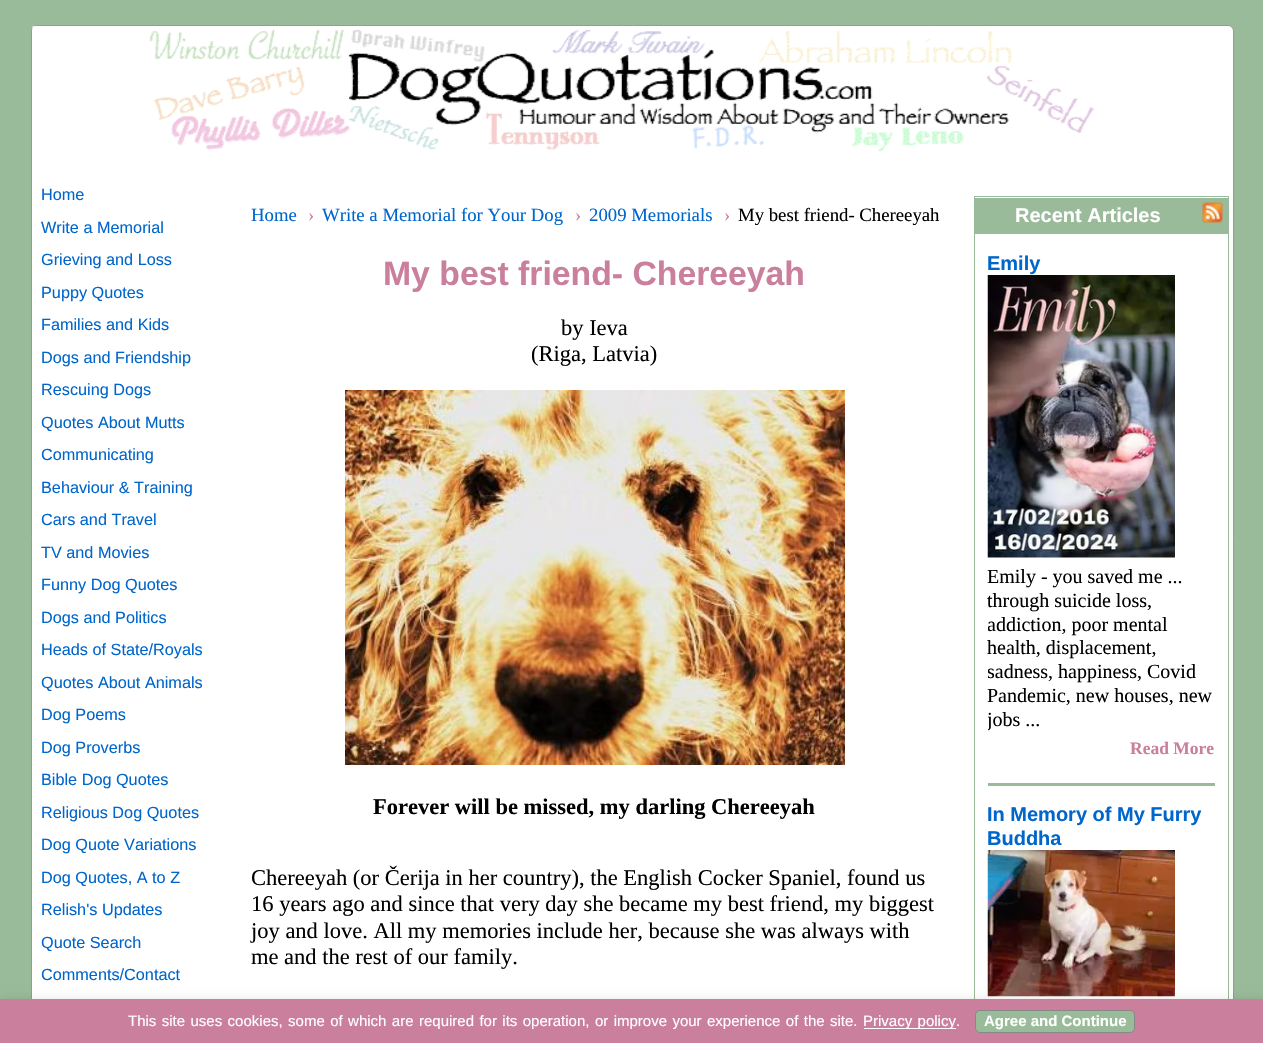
#include "include/core/SkBlurTypes.h"
#include "include/core/SkCanvas.h"
#include "include/core/SkData.h"
#include "include/core/SkFont.h"
#include "include/core/SkFontMgr.h"
#include "include/core/SkImage.h"
#include "include/core/SkMaskFilter.h"
#include "include/core/SkPaint.h"
#include "include/core/SkPathBuilder.h"
#include "include/core/SkTextBlob.h"
#include "include/effects/SkDashPathEffect.h"
#include "include/effects/SkGradientShader.h"
#include "include/utils/SkParsePath.h"

extern sk_sp<SkFontMgr> fontMgr;

void draw(SkCanvas* canvas) {
  SkPaint p;
  p.setAntiAlias(true);
  auto spacedText = [&](const char* s, float x, float y, const SkFont& font, const SkPaint& ink, float letter, float word) {
    std::vector<SkGlyphID> glyphs(font.countText(s, strlen(s), SkTextEncoding::kUTF8));
    std::vector<float> xs(glyphs.size());
    font.textToGlyphs(s, strlen(s), SkTextEncoding::kUTF8, glyphs);
    font.getXPos(glyphs, xs, x);
    float extra = 0;
    for (size_t i = 0; i < glyphs.size(); i++) {
      xs[i] += extra;
      extra += letter + word * (glyphs[i] == font.unicharToGlyph(' '));
    }
    canvas->drawTextBlob(SkTextBlob::MakeFromPosHGlyphs(glyphs, xs, y, font), 0, 0, ink);
  };
  canvas->clear(SkColorSetRGB(153, 187, 153));
  p.setColor(SK_ColorWHITE);
  canvas->drawRoundRect(SkRect::MakeLTRB(31.5f, 25.5f, 1233.5f, 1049.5f), 5.5f, 5.5f, p);
  p.setStyle(SkPaint::kStroke_Style);
  p.setStrokeWidth(1);
  p.setColor(SkColorSetRGB(153, 153, 153));
  canvas->drawRoundRect(SkRect::MakeLTRB(31.5f, 25.5f, 1233.5f, 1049.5f), 5.5f, 5.5f, p);
  canvas->drawImageRect(SkImages::DeferredFromEncodedData(SkData::MakeFromFileName("images/1.png")), SkRect::MakeLTRB(32, 26, 1094, 152), SkSamplingOptions());
  canvas->drawImageRect(SkImages::DeferredFromEncodedData(SkData::MakeFromFileName("images/2.png")), SkRect::MakeLTRB(345, 390, 845, 765), SkSamplingOptions());
  p.setColor(SkColorSetRGB(153, 187, 153));
  canvas->drawRect(SkRect::MakeLTRB(974.5f, 196.5f, 1228.5f, 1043.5f), p);
  p.setStyle(SkPaint::kFill_Style);
  canvas->drawRect(SkRect::MakeLTRB(975, 198, 1228, 234), p);
  canvas->drawImageRect(SkImages::DeferredFromEncodedData(SkData::MakeFromFileName("images/3.png")), SkRect::MakeLTRB(1202, 202, 1223, 223), SkSamplingOptions());
  canvas->drawImageRect(SkImages::DeferredFromEncodedData(SkData::MakeFromFileName("images/4.png")), SkRect::MakeLTRB(987, 275, 1175, 558), SkSamplingOptions());
  canvas->drawRect(SkRect::MakeLTRB(988, 783, 1215, 786), p);
  canvas->drawImageRect(SkImages::DeferredFromEncodedData(SkData::MakeFromFileName("images/5.png")), SkRect::MakeLTRB(987, 850, 1175, 997), SkSamplingOptions());
  p.setColor(SkColorSetARGB(51, 0, 0, 0));
  p.setMaskFilter(SkMaskFilter::MakeBlur(kNormal_SkBlurStyle, 6));
  canvas->drawRect(SkRect::MakeLTRB(-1, 1003, 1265, 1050), p);
  p.setMaskFilter(nullptr);
  p.setColor(SkColorSetRGB(202, 127, 157));
  canvas->drawRect(SkRect::MakeLTRB(0, 999, 1263, 1043), p);
  p.setColor(SK_ColorWHITE);
  canvas->drawRect(SkRect::MakeLTRB(864, 1028, 956, 1029), p);
  p.setColor(SkColorSetRGB(153, 187, 153));
  canvas->drawRoundRect(SkRect::MakeLTRB(975.5f, 1010.5f, 1134.5f, 1032.5f), 4.5f, 4.5f, p);
  p.setStyle(SkPaint::kStroke_Style);
  p.setColor(SkColorSetRGB(136, 136, 136));
  canvas->drawRoundRect(SkRect::MakeLTRB(975.5f, 1010.5f, 1134.5f, 1032.5f), 4.5f, 4.5f, p);
  SkFont font1(fontMgr->matchFamilyStyle("Liberation Sans", SkFontStyle::Normal()), 16.25f);
  font1.setSubpixel(true);
  p.setStyle(SkPaint::kFill_Style);
  p.setColor(SkColorSetRGB(0, 102, 204));
  canvas->drawString("Home", 41, 200, font1, p);
  canvas->drawString("Write a Memorial", 41, 233, font1, p);
  canvas->drawString("Grieving and Loss", 41, 265, font1, p);
  canvas->drawString("Puppy Quotes", 41, 298, font1, p);
  canvas->drawString("Families and Kids", 41, 330, font1, p);
  canvas->drawString("Dogs and Friendship", 41, 363, font1, p);
  canvas->drawString("Rescuing Dogs", 41, 395, font1, p);
  canvas->drawString("Quotes About Mutts", 41, 428, font1, p);
  canvas->drawString("Communicating", 41, 460, font1, p);
  canvas->drawString("Behaviour & Training", 41, 493, font1, p);
  canvas->drawString("Cars and Travel", 41, 525, font1, p);
  canvas->drawString("TV and Movies", 41, 558, font1, p);
  canvas->drawString("Funny Dog Quotes", 41, 590, font1, p);
  canvas->drawString("Dogs and Politics", 41, 623, font1, p);
  canvas->drawString("Heads of State/Royals", 41, 655, font1, p);
  canvas->drawString("Quotes About Animals", 41, 688, font1, p);
  canvas->drawString("Dog Poems", 41, 720, font1, p);
  canvas->drawString("Dog Proverbs", 41, 753, font1, p);
  canvas->drawString("Bible Dog Quotes", 41, 785, font1, p);
  canvas->drawString("Religious Dog Quotes", 41, 818, font1, p);
  canvas->drawString("Dog Quote Variations", 41, 850, font1, p);
  canvas->drawString("Dog Quotes, A to Z", 41, 883, font1, p);
  canvas->drawString("Relish's Updates", 41, 915, font1, p);
  canvas->drawString("Quote Search", 41, 948, font1, p);
  canvas->drawString("Comments/Contact", 41, 980, font1, p);
  SkFont font2(fontMgr->matchFamilyStyle("Liberation Serif", SkFontStyle::Normal()), 18.75f);
  font2.setSubpixel(true);
  canvas->drawString("Home", 251, 221, font2, p);
  p.setColor(SkColorSetRGB(202, 127, 157));
  canvas->drawString("›", 308, 221, font2, p);
  p.setColor(SkColorSetRGB(0, 102, 204));
  canvas->drawString("Write a Memorial for Your Dog", 322, 221, font2, p);
  p.setColor(SkColorSetRGB(202, 127, 157));
  canvas->drawString("›", 575, 221, font2, p);
  p.setColor(SkColorSetRGB(0, 102, 204));
  canvas->drawString("2009 Memorials", 589, 221, font2, p);
  p.setColor(SkColorSetRGB(202, 127, 157));
  canvas->drawString("›", 724, 221, font2, p);
  p.setColor(SK_ColorBLACK);
  canvas->drawString("My best friend- Chereeyah", 738, 221, font2, p);
  SkFont font3(fontMgr->matchFamilyStyle("Liberation Sans", SkFontStyle::Bold()), 33.75f);
  font3.setSubpixel(true);
  p.setColor(SkColorSetRGB(202, 127, 157));
  canvas->drawString("My best friend- Chereeyah", 383, 285, font3, p);
  SkFont font4(fontMgr->matchFamilyStyle("Liberation Serif", SkFontStyle::Normal()), 22.5f);
  font4.setSubpixel(true);
  p.setColor(SK_ColorBLACK);
  canvas->drawString("by Ieva", 561, 335, font4, p);
  canvas->drawString("(Riga, Latvia)", 531, 361, font4, p);
  SkFont font5(fontMgr->matchFamilyStyle("Liberation Serif", SkFontStyle::Bold()), 22.5f);
  font5.setSubpixel(true);
  canvas->drawString("Forever will be missed, my darling Chereeyah", 373, 814, font5, p);
  canvas->drawString("Chereeyah (or Čerija in her country), the English Cocker Spaniel, found us", 251, 885, font4, p);
  canvas->drawString("16 years ago and since that very day she became my best friend, my biggest", 251, 911, font4, p);
  canvas->drawString("joy and love. All my memories include her, because she was always with", 251, 938, font4, p);
  canvas->drawString("me and the rest of our family.", 251, 964, font4, p);
  SkFont font6(fontMgr->matchFamilyStyle("Liberation Sans", SkFontStyle::Bold()), 20);
  font6.setSubpixel(true);
  p.setColor(SK_ColorWHITE);
  canvas->drawString("Recent Articles", 1015, 222, font6, p);
  p.setColor(SkColorSetRGB(0, 102, 204));
  canvas->drawString("Emily", 987, 270, font6, p);
  SkFont font7(fontMgr->matchFamilyStyle("Liberation Serif", SkFontStyle::Normal()), 20);
  font7.setSubpixel(true);
  p.setColor(SK_ColorBLACK);
  canvas->drawString("Emily - you saved me ...", 987, 583, font7, p);
  canvas->drawString("through suicide loss,", 987, 607, font7, p);
  canvas->save();
  canvas->clipRect(SkRect::MakeLTRB(988, 234, 1215, 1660));
  canvas->drawString("addiction, poor mental", 987, 631, font7, p);
  canvas->restore();
  canvas->drawString("health, displacement,", 987, 654, font7, p);
  canvas->save();
  canvas->clipRect(SkRect::MakeLTRB(988, 234, 1215, 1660));
  canvas->drawString("sadness, happiness, Covid", 987, 678, font7, p);
  canvas->restore();
  canvas->drawString("Pandemic, new houses, new", 987, 702, font7, p);
  canvas->save();
  canvas->clipRect(SkRect::MakeLTRB(988, 234, 1215, 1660));
  canvas->drawString("jobs ...", 987, 726, font7, p);
  canvas->restore();
  SkFont font8(fontMgr->matchFamilyStyle("Liberation Serif", SkFontStyle::Bold()), 17.5f);
  font8.setSubpixel(true);
  p.setColor(SkColorSetRGB(202, 127, 157));
  canvas->drawString("Read More", 1130, 754, font8, p);
  p.setColor(SkColorSetRGB(0, 102, 204));
  canvas->drawString("In Memory of My Furry", 987, 821, font6, p);
  canvas->drawString("Buddha", 987, 845, font6, p);
  SkFont font9(fontMgr->matchFamilyStyle("Liberation Sans", SkFontStyle::Normal()), 15);
  font9.setSubpixel(true);
  p.setColor(SK_ColorWHITE);
  spacedText("This site uses cookies, some of which are required for its operation, or improve your experience of the site.", 128, 1026, font9, p, 0, 1.25f);
  spacedText("Privacy policy", 863, 1026, font9, p, 0, 1.25f);
  canvas->drawString(".", 956, 1026, font9, p);
  SkFont font10(fontMgr->matchFamilyStyle("Liberation Sans", SkFontStyle::Bold()), 15);
  font10.setSubpixel(true);
  canvas->drawString("Agree and Continue", 984, 1026, font10, p);
}
